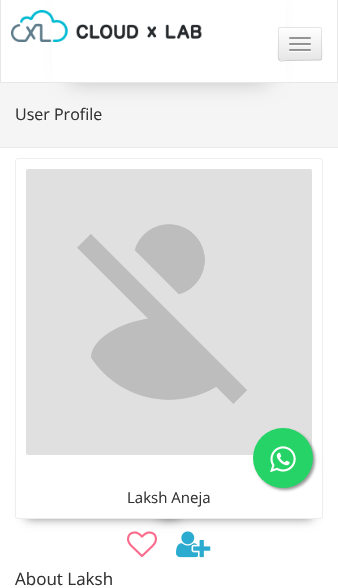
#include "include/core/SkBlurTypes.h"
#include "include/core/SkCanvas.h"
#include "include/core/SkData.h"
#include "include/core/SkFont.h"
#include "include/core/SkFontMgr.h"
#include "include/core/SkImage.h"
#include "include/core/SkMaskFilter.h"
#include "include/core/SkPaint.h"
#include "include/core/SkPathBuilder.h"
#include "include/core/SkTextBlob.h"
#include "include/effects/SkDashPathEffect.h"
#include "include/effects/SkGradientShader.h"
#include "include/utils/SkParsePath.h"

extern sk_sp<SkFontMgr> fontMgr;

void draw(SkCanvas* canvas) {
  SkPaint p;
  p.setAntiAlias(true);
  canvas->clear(SK_ColorWHITE);
  p.setColor(SkColorSetRGB(245, 245, 245));
  canvas->drawRect(SkRect::MakeLTRB(0, 83, 338, 147), p);
  p.setColor(SkColorSetARGB(51, 0, 0, 0));
  p.setMaskFilter(SkMaskFilter::MakeBlur(kNormal_SkBlurStyle, 10));
  canvas->drawRoundRect(SkRect::MakeLTRB(68, 0, 270, 83), 10, 10, p);
  p.setMaskFilter(nullptr);
  p.setColor(SK_ColorWHITE);
  canvas->drawRect(SkRect::MakeLTRB(52, 0, 286, 82), p);
  p.setColor(SkColorSetRGB(231, 231, 231));
  canvas->drawRect(SkRect::MakeLTRB(337, 0, 338, 83), p);
  canvas->drawRect(SkRect::MakeLTRB(0, 82, 338, 83), p);
  canvas->drawRect(SkRect::MakeLTRB(0, 0, 1, 83), p);
  canvas->drawImageRect(SkImages::DeferredFromEncodedData(SkData::MakeFromFileName("images/1.png")), SkRect::MakeLTRB(11, 10, 202, 42), SkSamplingOptions());
  canvas->save();
  canvas->clipPath(SkPathBuilder().moveTo(280, 27).lineTo(320, 27).cubicTo(321, 27, 322, 28, 322, 29).lineTo(322, 59).cubicTo(322, 60, 321, 61, 320, 61).lineTo(280, 61).cubicTo(279, 61, 278, 60, 278, 59).lineTo(278, 29).cubicTo(278, 28, 279, 27, 280, 27).close().detach(), true);
  {
    const SkColor colors[] = {SK_ColorWHITE, SkColorSetRGB(230, 230, 230)};
    const float stops[] = {0, 1};
    const SkPoint ends[] = {{300, 28}, {300, 60}};
    p.setShader(SkGradientShader::MakeLinear(ends, colors, stops, 2, SkTileMode::kClamp));
    p.setAlpha(255);
  }
  canvas->drawRect(SkRect::MakeLTRB(278, 28, 322, 60), p);
  canvas->restore();
  p.setStyle(SkPaint::kStroke_Style);
  p.setStrokeWidth(1);
  p.setShader(nullptr);
  p.setColor(SkColorSetRGB(204, 204, 204));
  canvas->drawPath(SkPathBuilder().moveTo(321, 60).lineTo(286.5f, 60.5f).cubicTo(284, 60.5f, 281, 62, 279, 60).detach(), p);
  p.setColor(SkColorSetARGB(26, 0, 0, 0));
  canvas->drawPath(SkPathBuilder().moveTo(279, 60).cubicTo(277.5f, 58.5f, 278.5f, 46.5f, 278.5f, 44).lineTo(278.5f, 34).cubicTo(278.5f, 26, 277.5f, 27.5f, 286.5f, 27.5f).lineTo(313.5f, 27.5f).cubicTo(322.5f, 27.5f, 321.5f, 26, 321.5f, 34).lineTo(321.5f, 44).cubicTo(321.5f, 46.5f, 322.5f, 58.5f, 321, 60).detach(), p);
  p.setStyle(SkPaint::kFill_Style);
  p.setColor(SkColorSetRGB(149, 149, 149));
  canvas->drawRoundRect(SkRect::MakeLTRB(289, 37, 311, 39), 1, 1, p);
  p.setColor(SK_ColorWHITE);
  p.setMaskFilter(SkMaskFilter::MakeBlur(kNormal_SkBlurStyle, 0.5f));
  canvas->drawRoundRect(SkRect::MakeLTRB(289, 44, 311, 46), 1, 1, p);
  p.setMaskFilter(nullptr);
  p.setColor(SkColorSetRGB(146, 146, 146));
  canvas->drawRoundRect(SkRect::MakeLTRB(289, 43, 311, 45), 1, 1, p);
  p.setColor(SK_ColorWHITE);
  p.setMaskFilter(SkMaskFilter::MakeBlur(kNormal_SkBlurStyle, 0.5f));
  canvas->drawRoundRect(SkRect::MakeLTRB(289, 50, 311, 52), 1, 1, p);
  p.setMaskFilter(nullptr);
  p.setColor(SkColorSetARGB(102, 0, 0, 0));
  canvas->drawRoundRect(SkRect::MakeLTRB(289, 49, 311, 51), 1, 1, p);
  p.setColor(SkColorSetRGB(233, 233, 233));
  canvas->drawRect(SkRect::MakeLTRB(0, 147, 338, 148), p);
  p.setColor(SkColorSetRGB(119, 119, 119));
  p.setMaskFilter(SkMaskFilter::MakeBlur(kNormal_SkBlurStyle, 5));
  canvas->drawRect(SkRect::MakeLTRB(26, 461, 179, 518), p);
  p.setMaskFilter(nullptr);
  p.setMaskFilter(SkMaskFilter::MakeBlur(kNormal_SkBlurStyle, 5));
  canvas->drawRect(SkRect::MakeLTRB(159, 461, 312, 518), p);
  p.setMaskFilter(nullptr);
  p.setColor(SK_ColorWHITE);
  canvas->drawRoundRect(SkRect::MakeLTRB(15.5f, 158.5f, 322.5f, 518.5f), 2.5f, 2.5f, p);
  p.setStyle(SkPaint::kStroke_Style);
  p.setColor(SkColorSetRGB(238, 238, 238));
  canvas->drawRoundRect(SkRect::MakeLTRB(15.5f, 158.5f, 322.5f, 518.5f), 2.5f, 2.5f, p);
  canvas->drawImageRect(SkImages::DeferredFromEncodedData(SkData::MakeFromFileName("images/3.png")), SkRect::MakeLTRB(26, 169, 312, 455), SkSamplingOptions());
  p.setStyle(SkPaint::kFill_Style);
  p.setColor(SkColorSetRGB(153, 153, 153));
  p.setMaskFilter(SkMaskFilter::MakeBlur(kNormal_SkBlurStyle, 1.5f));
  canvas->drawRoundRect(SkRect::MakeLTRB(255, 430, 315, 490), 30, 30, p);
  p.setMaskFilter(nullptr);
  p.setColor(SkColorSetRGB(37, 211, 102));
  canvas->drawCircle(283, 458, 30, p);
  canvas->drawImageRect(SkImages::DeferredFromEncodedData(SkData::MakeFromFileName("images/2.png")), SkRect::MakeLTRB(270, 446, 296, 473), SkSamplingOptions());
  canvas->drawImageRect(SkImages::DeferredFromEncodedData(SkData::MakeFromFileName("images/4.png")), SkRect::MakeLTRB(127, 531, 157, 558), SkSamplingOptions());
  canvas->drawImageRect(SkImages::DeferredFromEncodedData(SkData::MakeFromFileName("images/5.png")), SkRect::MakeLTRB(176, 531, 211, 558), SkSamplingOptions());
  SkFont font1(fontMgr->matchFamilyStyle("Open Sans", SkFontStyle::Normal()), 16);
  font1.setSubpixel(true);
  p.setColor(SkColorSetRGB(51, 51, 51));
  canvas->drawString("User Profile", 15, 120, font1, p);
  SkFont font2(fontMgr->matchFamilyStyle("Open Sans", SkFontStyle::Normal()), 15);
  font2.setSubpixel(true);
  canvas->drawString("Laksh Aneja", 127, 503, font2, p);
  SkFont font3(fontMgr->matchFamilyStyle("Open Sans", SkFontStyle::Normal()), 17);
  font3.setSubpixel(true);
  canvas->drawString("About Laksh", 15, 585, font3, p);
}
